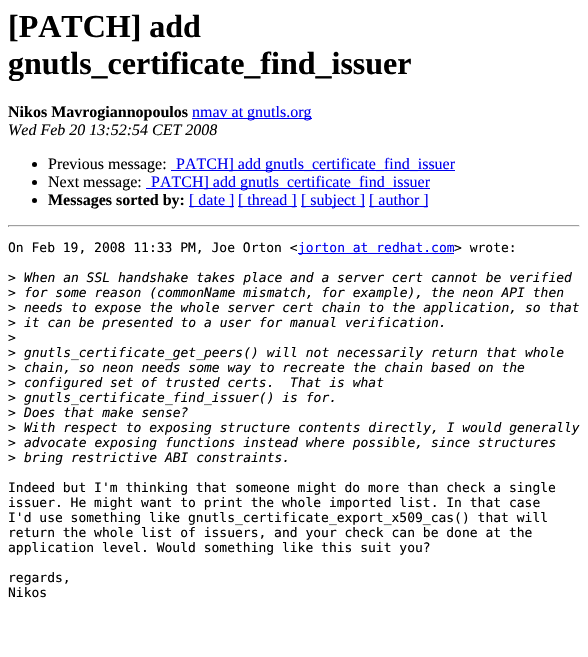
#include "include/core/SkBlurTypes.h"
#include "include/core/SkCanvas.h"
#include "include/core/SkData.h"
#include "include/core/SkFont.h"
#include "include/core/SkFontMgr.h"
#include "include/core/SkImage.h"
#include "include/core/SkMaskFilter.h"
#include "include/core/SkPaint.h"
#include "include/core/SkPathBuilder.h"
#include "include/core/SkTextBlob.h"
#include "include/effects/SkDashPathEffect.h"
#include "include/effects/SkGradientShader.h"
#include "include/utils/SkParsePath.h"

extern sk_sp<SkFontMgr> fontMgr;

void draw(SkCanvas* canvas) {
  SkPaint p;
  p.setAntiAlias(true);
  canvas->clear(SK_ColorWHITE);
  p.setColor(SkColorSetRGB(0, 0, 238));
  canvas->drawRect(SkRect::MakeLTRB(192, 118, 312, 119), p);
  p.setColor(SK_ColorBLACK);
  canvas->drawCircle(34.5f, 164.5f, 2.5f, p);
  p.setColor(SkColorSetRGB(0, 0, 238));
  canvas->drawRect(SkRect::MakeLTRB(171, 170, 455, 171), p);
  p.setColor(SK_ColorBLACK);
  canvas->drawCircle(34.5f, 182.5f, 2.5f, p);
  p.setColor(SkColorSetRGB(0, 0, 238));
  canvas->drawRect(SkRect::MakeLTRB(146, 188, 430, 189), p);
  p.setColor(SK_ColorBLACK);
  canvas->drawCircle(34.5f, 200.5f, 2.5f, p);
  p.setColor(SkColorSetRGB(0, 0, 238));
  canvas->drawRect(SkRect::MakeLTRB(189, 206, 234, 207), p);
  canvas->drawRect(SkRect::MakeLTRB(238, 206, 297, 207), p);
  canvas->drawRect(SkRect::MakeLTRB(301, 206, 365, 207), p);
  canvas->drawRect(SkRect::MakeLTRB(369, 206, 428, 207), p);
  p.setColor(SkColorSetRGB(159, 159, 159));
  canvas->drawRect(SkRect::MakeLTRB(8, 225, 580, 226), p);
  p.setColor(SkColorSetRGB(238, 238, 238));
  canvas->drawRect(SkRect::MakeLTRB(579, 225, 580, 227), p);
  canvas->drawRect(SkRect::MakeLTRB(8, 226, 580, 227), p);
  p.setColor(SkColorSetRGB(159, 159, 159));
  canvas->drawRect(SkRect::MakeLTRB(8, 225, 9, 227), p);
  p.setColor(SkColorSetRGB(0, 0, 238));
  canvas->drawRect(SkRect::MakeLTRB(298, 253, 454, 254), p);
  SkFont font1(fontMgr->matchFamilyStyle("Liberation Serif", SkFontStyle::Bold()), 32);
  font1.setSubpixel(true);
  p.setColor(SK_ColorBLACK);
  canvas->drawString("[PATCH] add", 8, 37, font1, p);
  canvas->drawString("gnutls_certificate_find_issuer", 8, 74, font1, p);
  SkFont font2(fontMgr->matchFamilyStyle("Liberation Serif", SkFontStyle::Bold()), 16);
  font2.setSubpixel(true);
  canvas->drawString("Nikos Mavrogiannopoulos", 8, 117, font2, p);
  SkFont font3(fontMgr->matchFamilyStyle("Liberation Serif", SkFontStyle::Normal()), 16);
  font3.setSubpixel(true);
  p.setColor(SkColorSetRGB(0, 0, 238));
  canvas->drawString("nmav at gnutls.org", 192, 117, font3, p);
  SkFont font4(fontMgr->matchFamilyStyle("Liberation Serif", SkFontStyle::Italic()), 16);
  font4.setSubpixel(true);
  p.setColor(SK_ColorBLACK);
  canvas->drawString("Wed Feb 20 13:52:54 CET 2008", 8, 135, font4, p);
  canvas->drawString("Previous message:", 48, 169, font3, p);
  p.setColor(SkColorSetRGB(0, 0, 238));
  canvas->drawString("PATCH] add gnutls_certificate_find_issuer", 176, 169, font3, p);
  p.setColor(SK_ColorBLACK);
  canvas->drawString("Next message:", 48, 187, font3, p);
  p.setColor(SkColorSetRGB(0, 0, 238));
  canvas->drawString("PATCH] add gnutls_certificate_find_issuer", 151, 187, font3, p);
  p.setColor(SK_ColorBLACK);
  canvas->drawString("Messages sorted by:", 48, 205, font2, p);
  p.setColor(SkColorSetRGB(0, 0, 238));
  canvas->drawString("[ date ]", 189, 205, font3, p);
  canvas->drawString("[ thread ]", 238, 205, font3, p);
  canvas->drawString("[ subject ]", 301, 205, font3, p);
  canvas->drawString("[ author ]", 369, 205, font3, p);
  SkFont font5(fontMgr->matchFamilyStyle("DejaVu Sans Mono", SkFontStyle::Normal()), 13);
  font5.setSubpixel(true);
  p.setColor(SK_ColorBLACK);
  canvas->drawString("On Feb 19, 2008 11:33 PM, Joe Orton <", 8, 252, font5, p);
  p.setColor(SkColorSetRGB(0, 0, 238));
  canvas->drawString("jorton at redhat.com", 298, 252, font5, p);
  p.setColor(SK_ColorBLACK);
  canvas->drawString("> wrote:", 454, 252, font5, p);
  canvas->drawString(">", 8, 282, font5, p);
  SkFont font6(fontMgr->matchFamilyStyle("DejaVu Sans Mono", SkFontStyle::Italic()), 13);
  font6.setSubpixel(true);
  canvas->drawString("When an SSL handshake takes place and a server cert cannot be verified", 24, 282, font6, p);
  canvas->drawString(">", 8, 297, font5, p);
  canvas->drawString("for some reason (commonName mismatch, for example), the neon API then", 24, 297, font6, p);
  canvas->drawString(">", 8, 312, font5, p);
  canvas->drawString("needs to expose the whole server cert chain to the application, so that", 24, 312, font6, p);
  canvas->drawString(">", 8, 327, font5, p);
  canvas->drawString("it can be presented to a user for manual verification.", 24, 327, font6, p);
  canvas->drawString(">", 8, 342, font5, p);
  canvas->drawString(">", 8, 357, font5, p);
  canvas->drawString("gnutls_certificate_get_peers() will not necessarily return that whole", 24, 357, font6, p);
  canvas->drawString(">", 8, 372, font5, p);
  canvas->drawString("chain, so neon needs some way to recreate the chain based on the", 24, 372, font6, p);
  canvas->drawString(">", 8, 387, font5, p);
  canvas->drawString("configured set of trusted certs.  That is what", 24, 387, font6, p);
  canvas->drawString(">", 8, 402, font5, p);
  canvas->drawString("gnutls_certificate_find_issuer() is for.", 24, 402, font6, p);
  canvas->drawString(">", 8, 417, font5, p);
  canvas->drawString("Does that make sense?", 24, 417, font6, p);
  canvas->drawString(">", 8, 432, font5, p);
  canvas->drawString("With respect to exposing structure contents directly, I would generally", 24, 432, font6, p);
  canvas->drawString(">", 8, 447, font5, p);
  canvas->drawString("advocate exposing functions instead where possible, since structures", 24, 447, font6, p);
  canvas->drawString(">", 8, 462, font5, p);
  canvas->drawString("bring restrictive ABI constraints.", 24, 462, font6, p);
  canvas->drawString("Indeed but I'm thinking that someone might do more than check a single", 8, 492, font5, p);
  canvas->drawString("issuer. He might want to print the whole imported list. In that case", 8, 507, font5, p);
  canvas->drawString("I'd use something like gnutls_certificate_export_x509_cas() that will", 8, 522, font5, p);
  canvas->drawString("return the whole list of issuers, and your check can be done at the", 8, 537, font5, p);
  canvas->drawString("application level. Would something like this suit you?", 8, 552, font5, p);
  canvas->drawString("regards,", 8, 582, font5, p);
  canvas->drawString("Nikos", 8, 597, font5, p);
}
